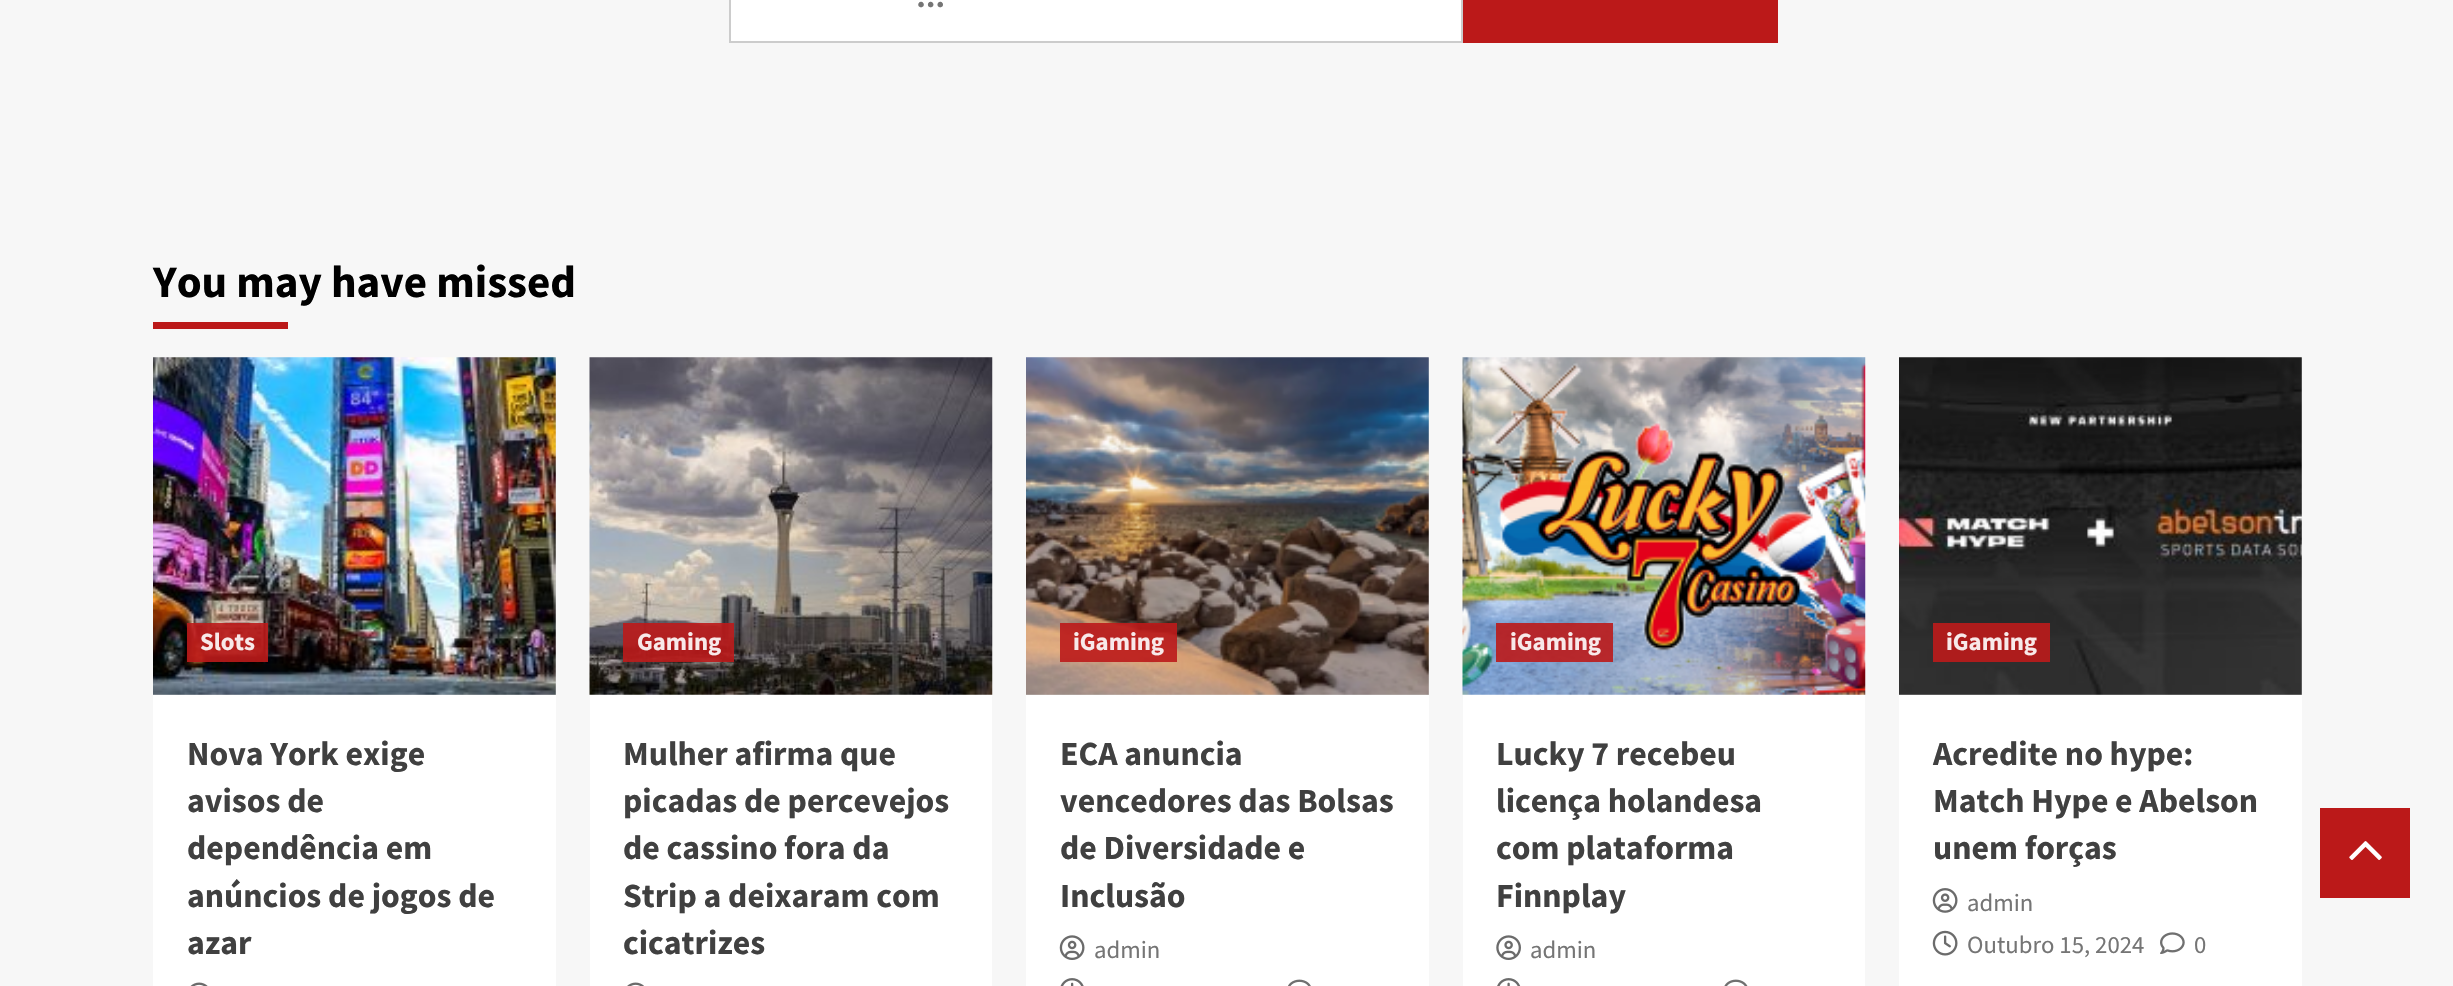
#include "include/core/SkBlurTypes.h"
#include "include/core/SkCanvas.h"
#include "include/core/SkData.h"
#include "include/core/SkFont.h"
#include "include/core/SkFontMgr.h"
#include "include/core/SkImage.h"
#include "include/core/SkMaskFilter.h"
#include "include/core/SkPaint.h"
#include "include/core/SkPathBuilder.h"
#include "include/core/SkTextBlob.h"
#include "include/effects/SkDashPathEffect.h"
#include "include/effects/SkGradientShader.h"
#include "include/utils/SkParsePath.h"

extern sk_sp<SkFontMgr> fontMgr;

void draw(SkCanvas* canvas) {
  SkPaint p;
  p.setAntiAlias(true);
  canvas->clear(SkColorSetRGB(247, 247, 247));
  p.setColor(SK_ColorWHITE);
  canvas->drawRect(SkRect::MakeLTRB(730, -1, 1462, 42), p);
  p.setStyle(SkPaint::kStroke_Style);
  p.setStrokeWidth(2);
  p.setColor(SkColorSetRGB(204, 204, 204));
  canvas->drawRect(SkRect::MakeLTRB(730, -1, 1462, 42), p);
  p.setStyle(SkPaint::kFill_Style);
  p.setColor(SkColorSetRGB(187, 25, 25));
  canvas->drawRect(SkRect::MakeLTRB(1463, 0, 1778, 43), p);
  canvas->drawRect(SkRect::MakeLTRB(153, 322, 288, 329), p);
  p.setColor(SK_ColorWHITE);
  canvas->drawRect(SkRect::MakeLTRB(153, 695, 556, 986), p);
  p.setColor(SkColorSetRGB(216, 216, 216));
  canvas->drawRect(SkRect::MakeLTRB(153, 358, 556, 695), p);
  canvas->drawImageRect(SkImages::DeferredFromEncodedData(SkData::MakeFromFileName("images/1.png")), SkRect::MakeLTRB(153, 357, 556, 695), SkSamplingOptions());
  p.setColor(SkColorSetARGB(230, 187, 25, 25));
  canvas->drawRect(SkRect::MakeLTRB(187, 623, 268, 662), p);
  canvas->drawImageRect(SkImages::DeferredFromEncodedData(SkData::MakeFromFileName("images/2.png")), SkRect::MakeLTRB(190, 982, 208, 986), SkSamplingOptions());
  p.setColor(SK_ColorWHITE);
  canvas->drawRect(SkRect::MakeLTRB(590, 694, 992, 986), p);
  canvas->drawImageRect(SkImages::DeferredFromEncodedData(SkData::MakeFromFileName("images/3.png")), SkRect::MakeLTRB(589, 357, 993, 695), SkSamplingOptions());
  p.setColor(SkColorSetARGB(230, 187, 25, 25));
  canvas->drawRect(SkRect::MakeLTRB(623, 623, 734, 662), p);
  canvas->drawImageRect(SkImages::DeferredFromEncodedData(SkData::MakeFromFileName("images/4.png")), SkRect::MakeLTRB(627, 982, 644, 986), SkSamplingOptions());
  p.setColor(SK_ColorWHITE);
  canvas->drawRect(SkRect::MakeLTRB(1026, 695, 1429, 986), p);
  p.setColor(SkColorSetRGB(216, 216, 216));
  canvas->drawRect(SkRect::MakeLTRB(1026, 358, 1429, 695), p);
  canvas->drawImageRect(SkImages::DeferredFromEncodedData(SkData::MakeFromFileName("images/5.png")), SkRect::MakeLTRB(1026, 357, 1429, 695), SkSamplingOptions());
  p.setColor(SkColorSetARGB(230, 187, 25, 25));
  canvas->drawRect(SkRect::MakeLTRB(1060, 623, 1177, 662), p);
  canvas->drawImageRect(SkImages::DeferredFromEncodedData(SkData::MakeFromFileName("images/6.png")), SkRect::MakeLTRB(1059, 935, 1085, 960), SkSamplingOptions());
  canvas->drawImageRect(SkImages::DeferredFromEncodedData(SkData::MakeFromFileName("images/7.png")), SkRect::MakeLTRB(1060, 978, 1084, 986), SkSamplingOptions());
  canvas->drawImageRect(SkImages::DeferredFromEncodedData(SkData::MakeFromFileName("images/8.png")), SkRect::MakeLTRB(1288, 979, 1311, 986), SkSamplingOptions());
  p.setColor(SK_ColorWHITE);
  canvas->drawRect(SkRect::MakeLTRB(1463, 694, 1865, 986), p);
  canvas->drawImageRect(SkImages::DeferredFromEncodedData(SkData::MakeFromFileName("images/9.png")), SkRect::MakeLTRB(1462, 357, 1866, 695), SkSamplingOptions());
  p.setColor(SkColorSetARGB(230, 187, 25, 25));
  canvas->drawRect(SkRect::MakeLTRB(1496, 623, 1613, 662), p);
  canvas->drawImageRect(SkImages::DeferredFromEncodedData(SkData::MakeFromFileName("images/10.png")), SkRect::MakeLTRB(1496, 935, 1521, 960), SkSamplingOptions());
  canvas->drawImageRect(SkImages::DeferredFromEncodedData(SkData::MakeFromFileName("images/11.png")), SkRect::MakeLTRB(1497, 978, 1521, 986), SkSamplingOptions());
  canvas->drawImageRect(SkImages::DeferredFromEncodedData(SkData::MakeFromFileName("images/12.png")), SkRect::MakeLTRB(1724, 979, 1748, 986), SkSamplingOptions());
  p.setColor(SK_ColorWHITE);
  canvas->drawRect(SkRect::MakeLTRB(1899, 695, 2302, 986), p);
  p.setColor(SkColorSetRGB(216, 216, 216));
  canvas->drawRect(SkRect::MakeLTRB(1899, 358, 2302, 695), p);
  canvas->drawImageRect(SkImages::DeferredFromEncodedData(SkData::MakeFromFileName("images/13.png")), SkRect::MakeLTRB(1899, 357, 2302, 695), SkSamplingOptions());
  p.setColor(SkColorSetARGB(230, 187, 25, 25));
  canvas->drawRect(SkRect::MakeLTRB(1933, 623, 2050, 662), p);
  canvas->drawImageRect(SkImages::DeferredFromEncodedData(SkData::MakeFromFileName("images/14.png")), SkRect::MakeLTRB(1932, 888, 1958, 913), SkSamplingOptions());
  canvas->drawImageRect(SkImages::DeferredFromEncodedData(SkData::MakeFromFileName("images/15.png")), SkRect::MakeLTRB(1932, 930, 1958, 956), SkSamplingOptions());
  canvas->drawImageRect(SkImages::DeferredFromEncodedData(SkData::MakeFromFileName("images/16.png")), SkRect::MakeLTRB(2160, 932, 2185, 954), SkSamplingOptions());
  p.setColor(SkColorSetRGB(187, 25, 25));
  canvas->drawRect(SkRect::MakeLTRB(2320, 808, 2410, 898), p);
  canvas->drawImageRect(SkImages::DeferredFromEncodedData(SkData::MakeFromFileName("images/17.png")), SkRect::MakeLTRB(2349, 841, 2382, 860), SkSamplingOptions());
  SkFont font1(fontMgr->matchFamilyStyle("Lato", SkFontStyle::Bold()), 36);
  font1.setSubpixel(true);
  p.setColor(SkColorSetRGB(117, 117, 117));
  canvas->drawString("…", 917, 7, font1, p);
  SkFont font2(fontMgr->matchFamilyStyle("Source Sans Pro", SkFontStyle::Bold()), 45);
  font2.setSubpixel(true);
  p.setColor(SK_ColorBLACK);
  canvas->drawString("You may have missed", 153, 297, font2, p);
  SkFont font3(fontMgr->matchFamilyStyle("Source Sans Pro", SkFontStyle::Bold()), 24.75f);
  font3.setSubpixel(true);
  p.setColor(SkColorSetRGB(248, 233, 233));
  canvas->drawString("Slots", 200, 650, font3, p);
  SkFont font4(fontMgr->matchFamilyStyle("Source Sans Pro", SkFontStyle::Bold()), 33.75f);
  font4.setSubpixel(true);
  p.setColor(SkColorSetRGB(64, 64, 64));
  canvas->drawString("Nova York exige", 187, 765, font4, p);
  canvas->drawString("avisos de", 187, 812, font4, p);
  canvas->drawString("dependência em", 187, 859, font4, p);
  canvas->drawString("anúncios de jogos de", 187, 907, font4, p);
  canvas->drawString("azar", 187, 954, font4, p);
  p.setColor(SkColorSetRGB(248, 233, 233));
  canvas->drawString("Gaming", 637, 650, font3, p);
  p.setColor(SkColorSetRGB(64, 64, 64));
  canvas->drawString("Mulher afirma que", 623, 765, font4, p);
  canvas->drawString("picadas de percevejos", 623, 812, font4, p);
  canvas->drawString("de cassino fora da", 623, 859, font4, p);
  canvas->drawString("Strip a deixaram com", 623, 907, font4, p);
  canvas->drawString("cicatrizes", 623, 954, font4, p);
  p.setColor(SkColorSetRGB(248, 233, 233));
  canvas->drawString("iGaming", 1073, 650, font3, p);
  p.setColor(SkColorSetRGB(64, 64, 64));
  canvas->drawString("ECA anuncia", 1060, 765, font4, p);
  canvas->drawString("vencedores das Bolsas", 1060, 812, font4, p);
  canvas->drawString("de Diversidade e", 1060, 859, font4, p);
  canvas->drawString("Inclusão", 1060, 907, font4, p);
  SkFont font5(fontMgr->matchFamilyStyle("Source Sans Pro", SkFontStyle::Normal()), 24.75f);
  font5.setSubpixel(true);
  p.setColor(SkColorSetRGB(117, 117, 117));
  canvas->drawString("admin", 1094, 958, font5, p);
  p.setColor(SkColorSetRGB(248, 233, 233));
  canvas->drawString("iGaming", 1510, 650, font3, p);
  p.setColor(SkColorSetRGB(64, 64, 64));
  canvas->drawString("Lucky 7 recebeu", 1496, 765, font4, p);
  canvas->drawString("licença holandesa", 1496, 812, font4, p);
  canvas->drawString("com plataforma", 1496, 859, font4, p);
  canvas->drawString("Finnplay", 1496, 907, font4, p);
  p.setColor(SkColorSetRGB(117, 117, 117));
  canvas->drawString("admin", 1530, 958, font5, p);
  p.setColor(SkColorSetRGB(248, 233, 233));
  canvas->drawString("iGaming", 1946, 650, font3, p);
  p.setColor(SkColorSetRGB(64, 64, 64));
  canvas->drawString("Acredite no hype:", 1933, 765, font4, p);
  canvas->drawString("Match Hype e Abelson", 1933, 812, font4, p);
  canvas->drawString("unem forças", 1933, 859, font4, p);
  p.setColor(SkColorSetRGB(117, 117, 117));
  canvas->drawString("admin", 1967, 911, font5, p);
  canvas->drawString("Outubro 15, 2024", 1967, 953, font5, p);
  canvas->drawString("0", 2194, 953, font5, p);
}
